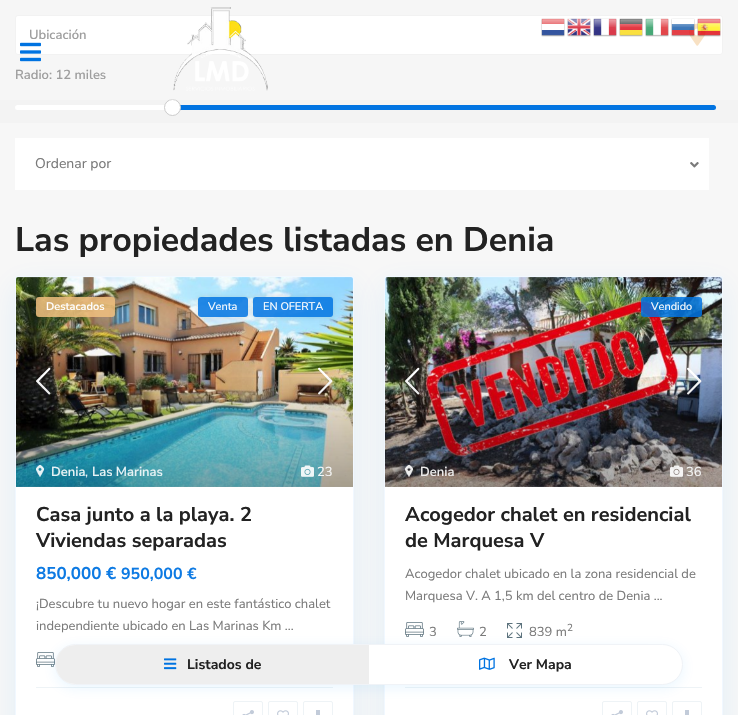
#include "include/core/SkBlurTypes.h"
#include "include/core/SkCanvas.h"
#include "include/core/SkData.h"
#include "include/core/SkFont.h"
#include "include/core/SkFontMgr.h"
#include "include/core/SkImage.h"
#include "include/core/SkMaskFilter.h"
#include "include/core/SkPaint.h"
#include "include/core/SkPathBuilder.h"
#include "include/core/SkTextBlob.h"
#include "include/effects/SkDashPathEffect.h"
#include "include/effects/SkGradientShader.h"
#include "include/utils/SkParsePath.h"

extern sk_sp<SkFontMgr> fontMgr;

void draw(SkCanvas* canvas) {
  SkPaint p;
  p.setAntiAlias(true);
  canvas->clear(SkColorSetRGB(247, 247, 247));
  p.setColor(SkColorSetRGB(243, 243, 243));
  canvas->drawRect(SkRect::MakeLTRB(0, 0, 738, 123), p);
  p.setColor(SK_ColorWHITE);
  canvas->drawRoundRect(SkRect::MakeLTRB(15.5f, 15.5f, 722.5f, 54.5f), 2.5f, 2.5f, p);
  p.setStyle(SkPaint::kStroke_Style);
  p.setStrokeWidth(1);
  p.setColor(SkColorSetRGB(238, 238, 238));
  canvas->drawRoundRect(SkRect::MakeLTRB(15.5f, 15.5f, 722.5f, 54.5f), 2.5f, 2.5f, p);
  canvas->drawImageRect(SkImages::DeferredFromEncodedData(SkData::MakeFromFileName("images/10.png")), SkRect::MakeLTRB(689, 23, 706, 46), SkSamplingOptions());
  p.setStyle(SkPaint::kFill_Style);
  p.setColor(SK_ColorWHITE);
  canvas->drawRoundRect(SkRect::MakeLTRB(15, 105, 716, 110), 2.5f, 2.5f, p);
  p.setColor(SkColorSetRGB(0, 115, 225));
  canvas->drawRoundRect(SkRect::MakeLTRB(172, 105, 716, 110), 2.5f, 2.5f, p);
  p.setColor(SK_ColorWHITE);
  canvas->drawCircle(172.5f, 107.5f, 8, p);
  p.setStyle(SkPaint::kStroke_Style);
  p.setColor(SkColorSetRGB(204, 204, 204));
  canvas->drawCircle(172.5f, 107.5f, 8, p);
  p.setStyle(SkPaint::kFill_Style);
  p.setColor(SK_ColorWHITE);
  canvas->drawRect(SkRect::MakeLTRB(15, 138, 709, 190), p);
  canvas->drawImageRect(SkImages::DeferredFromEncodedData(SkData::MakeFromFileName("images/11.png")), SkRect::MakeLTRB(690, 162, 699, 168), SkSamplingOptions());
  p.setColor(SkColorSetARGB(23, 7, 152, 255));
  p.setMaskFilter(SkMaskFilter::MakeBlur(kNormal_SkBlurStyle, 15.5f));
  canvas->drawRoundRect(SkRect::MakeLTRB(15, 286, 354, 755), 2, 2, p);
  p.setMaskFilter(nullptr);
  p.setColor(SK_ColorWHITE);
  canvas->drawRoundRect(SkRect::MakeLTRB(15.5f, 276.5f, 353.5f, 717.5f), 1.5f, 1.5f, p);
  p.setStyle(SkPaint::kStroke_Style);
  p.setColor(SkColorSetRGB(241, 248, 255));
  canvas->drawRoundRect(SkRect::MakeLTRB(15.5f, 276.5f, 353.5f, 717.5f), 1.5f, 1.5f, p);
  canvas->drawImageRect(SkImages::DeferredFromEncodedData(SkData::MakeFromFileName("images/12.png")), SkRect::MakeLTRB(16, 277, 353, 487), SkSamplingOptions());
  canvas->drawImageRect(SkImages::DeferredFromEncodedData(SkData::MakeFromFileName("images/13.png")), SkRect::MakeLTRB(36, 367, 51, 395), SkSamplingOptions());
  canvas->drawImageRect(SkImages::DeferredFromEncodedData(SkData::MakeFromFileName("images/14.png")), SkRect::MakeLTRB(318, 367, 333, 395), SkSamplingOptions());
  p.setStyle(SkPaint::kFill_Style);
  p.setColor(SkColorSetARGB(217, 241, 191, 127));
  canvas->drawRoundRect(SkRect::MakeLTRB(36, 297, 115, 317), 3, 3, p);
  canvas->save();
  canvas->clipPath(SkPathBuilder(SkPathFillType::kEvenOdd).moveTo(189, 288).lineTo(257, 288).lineTo(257, 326).lineTo(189, 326).close().moveTo(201, 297).lineTo(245, 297).cubicTo(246.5f, 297, 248, 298.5f, 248, 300).lineTo(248, 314).cubicTo(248, 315.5f, 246.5f, 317, 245, 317).lineTo(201, 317).cubicTo(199.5f, 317, 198, 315.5f, 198, 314).lineTo(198, 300).cubicTo(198, 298.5f, 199.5f, 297, 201, 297).close().detach(), true);
  p.setColor(SkColorSetARGB(26, 0, 0, 0));
  p.setMaskFilter(SkMaskFilter::MakeBlur(kNormal_SkBlurStyle, 2.5f));
  canvas->drawRoundRect(SkRect::MakeLTRB(198, 297, 248, 317), 3, 3, p);
  p.setMaskFilter(nullptr);
  canvas->restore();
  p.setColor(SkColorSetARGB(217, 0, 115, 225));
  canvas->drawRoundRect(SkRect::MakeLTRB(198, 297, 248, 317), 3, 3, p);
  canvas->save();
  canvas->clipPath(SkPathBuilder(SkPathFillType::kEvenOdd).moveTo(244, 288).lineTo(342, 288).lineTo(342, 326).lineTo(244, 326).close().moveTo(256, 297).lineTo(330, 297).cubicTo(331.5f, 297, 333, 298.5f, 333, 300).lineTo(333, 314).cubicTo(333, 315.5f, 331.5f, 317, 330, 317).lineTo(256, 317).cubicTo(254.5f, 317, 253, 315.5f, 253, 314).lineTo(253, 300).cubicTo(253, 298.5f, 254.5f, 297, 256, 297).close().detach(), true);
  p.setColor(SkColorSetARGB(26, 0, 0, 0));
  p.setMaskFilter(SkMaskFilter::MakeBlur(kNormal_SkBlurStyle, 2.5f));
  canvas->drawRoundRect(SkRect::MakeLTRB(253, 297, 333, 317), 3, 3, p);
  p.setMaskFilter(nullptr);
  canvas->restore();
  p.setColor(SkColorSetARGB(217, 0, 115, 225));
  canvas->drawRoundRect(SkRect::MakeLTRB(253, 297, 333, 317), 3, 3, p);
  p.setColor(SkColorSetARGB(23, 7, 152, 255));
  p.setMaskFilter(SkMaskFilter::MakeBlur(kNormal_SkBlurStyle, 15.5f));
  canvas->drawRoundRect(SkRect::MakeLTRB(384, 286, 723, 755), 2, 2, p);
  p.setMaskFilter(nullptr);
  {
    const SkColor colors[] = {SkColorSetARGB(87, 0, 0, 0), SkColorSetARGB(0, 0, 0, 0)};
    const float stops[] = {0, 0.56f};
    const SkPoint ends[] = {{185, 487}, {185, 277}};
    p.setShader(SkGradientShader::MakeLinear(ends, colors, stops, 2, SkTileMode::kClamp));
    p.setAlpha(255);
  }
  canvas->drawRect(SkRect::MakeLTRB(16, 377, 353, 487), p);
  canvas->drawImageRect(SkImages::DeferredFromEncodedData(SkData::MakeFromFileName("images/15.png")), SkRect::MakeLTRB(36, 465, 44, 477), SkSamplingOptions());
  canvas->drawImageRect(SkImages::DeferredFromEncodedData(SkData::MakeFromFileName("images/16.png")), SkRect::MakeLTRB(301, 465, 314, 477), SkSamplingOptions());
  canvas->drawImageRect(SkImages::DeferredFromEncodedData(SkData::MakeFromFileName("images/17.png")), SkRect::MakeLTRB(36, 652, 55, 667), SkSamplingOptions());
  p.setShader(nullptr);
  p.setColor(SkColorSetRGB(238, 243, 246));
  canvas->drawRect(SkRect::MakeLTRB(36, 687, 333, 688), p);
  canvas->drawImageRect(SkImages::DeferredFromEncodedData(SkData::MakeFromFileName("images/18.png")), SkRect::MakeLTRB(242, 710, 254, 715), SkSamplingOptions());
  p.setStyle(SkPaint::kStroke_Style);
  canvas->drawRoundRect(SkRect::MakeLTRB(233.5f, 701.5f, 262.5f, 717.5f), 1.5f, 1.5f, p);
  canvas->drawRoundRect(SkRect::MakeLTRB(268.5f, 701.5f, 297.5f, 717.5f), 1.5f, 1.5f, p);
  canvas->drawImageRect(SkImages::DeferredFromEncodedData(SkData::MakeFromFileName("images/19.png")), SkRect::MakeLTRB(277, 710, 289, 715), SkSamplingOptions());
  canvas->drawRoundRect(SkRect::MakeLTRB(303.5f, 701.5f, 332.5f, 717.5f), 1.5f, 1.5f, p);
  p.setStyle(SkPaint::kFill_Style);
  p.setColor(SkColorSetRGB(194, 203, 217));
  canvas->drawRect(SkRect::MakeLTRB(316, 710, 320, 715), p);
  p.setColor(SK_ColorWHITE);
  canvas->drawRoundRect(SkRect::MakeLTRB(384.5f, 276.5f, 722.5f, 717.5f), 1.5f, 1.5f, p);
  p.setStyle(SkPaint::kStroke_Style);
  p.setColor(SkColorSetRGB(241, 248, 255));
  canvas->drawRoundRect(SkRect::MakeLTRB(384.5f, 276.5f, 722.5f, 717.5f), 1.5f, 1.5f, p);
  canvas->drawImageRect(SkImages::DeferredFromEncodedData(SkData::MakeFromFileName("images/20.png")), SkRect::MakeLTRB(385, 277, 722, 487), SkSamplingOptions());
  canvas->drawImageRect(SkImages::DeferredFromEncodedData(SkData::MakeFromFileName("images/21.png")), SkRect::MakeLTRB(405, 367, 420, 395), SkSamplingOptions());
  canvas->drawImageRect(SkImages::DeferredFromEncodedData(SkData::MakeFromFileName("images/22.png")), SkRect::MakeLTRB(687, 367, 702, 395), SkSamplingOptions());
  canvas->save();
  canvas->clipPath(SkPathBuilder(SkPathFillType::kEvenOdd).moveTo(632, 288).lineTo(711, 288).lineTo(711, 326).lineTo(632, 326).close().moveTo(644, 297).lineTo(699, 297).cubicTo(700.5f, 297, 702, 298.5f, 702, 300).lineTo(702, 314).cubicTo(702, 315.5f, 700.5f, 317, 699, 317).lineTo(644, 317).cubicTo(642.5f, 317, 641, 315.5f, 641, 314).lineTo(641, 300).cubicTo(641, 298.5f, 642.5f, 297, 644, 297).close().detach(), true);
  p.setStyle(SkPaint::kFill_Style);
  p.setColor(SkColorSetARGB(26, 0, 0, 0));
  p.setMaskFilter(SkMaskFilter::MakeBlur(kNormal_SkBlurStyle, 2.5f));
  canvas->drawRoundRect(SkRect::MakeLTRB(641, 297, 702, 317), 3, 3, p);
  p.setMaskFilter(nullptr);
  canvas->restore();
  p.setColor(SkColorSetARGB(217, 0, 115, 225));
  canvas->drawRoundRect(SkRect::MakeLTRB(641, 297, 702, 317), 3, 3, p);
  {
    const SkColor colors[] = {SkColorSetARGB(87, 0, 0, 0), SkColorSetARGB(0, 0, 0, 0)};
    const float stops[] = {0, 0.56f};
    const SkPoint ends[] = {{554, 487}, {554, 277}};
    p.setShader(SkGradientShader::MakeLinear(ends, colors, stops, 2, SkTileMode::kClamp));
    p.setAlpha(255);
  }
  canvas->drawRect(SkRect::MakeLTRB(385, 377, 722, 487), p);
  canvas->drawImageRect(SkImages::DeferredFromEncodedData(SkData::MakeFromFileName("images/23.png")), SkRect::MakeLTRB(405, 465, 413, 477), SkSamplingOptions());
  canvas->drawImageRect(SkImages::DeferredFromEncodedData(SkData::MakeFromFileName("images/24.png")), SkRect::MakeLTRB(670, 465, 683, 477), SkSamplingOptions());
  canvas->drawImageRect(SkImages::DeferredFromEncodedData(SkData::MakeFromFileName("images/17.png")), SkRect::MakeLTRB(405, 622, 424, 637), SkSamplingOptions());
  canvas->drawImageRect(SkImages::DeferredFromEncodedData(SkData::MakeFromFileName("images/25.png")), SkRect::MakeLTRB(457, 621, 474, 637), SkSamplingOptions());
  canvas->drawImageRect(SkImages::DeferredFromEncodedData(SkData::MakeFromFileName("images/26.png")), SkRect::MakeLTRB(507, 623, 522, 638), SkSamplingOptions());
  p.setShader(nullptr);
  p.setColor(SkColorSetRGB(238, 243, 246));
  canvas->drawRect(SkRect::MakeLTRB(405, 687, 702, 688), p);
  canvas->drawImageRect(SkImages::DeferredFromEncodedData(SkData::MakeFromFileName("images/18.png")), SkRect::MakeLTRB(611, 710, 623, 715), SkSamplingOptions());
  p.setStyle(SkPaint::kStroke_Style);
  canvas->drawRoundRect(SkRect::MakeLTRB(602.5f, 701.5f, 631.5f, 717.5f), 1.5f, 1.5f, p);
  canvas->drawRoundRect(SkRect::MakeLTRB(637.5f, 701.5f, 666.5f, 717.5f), 1.5f, 1.5f, p);
  canvas->drawImageRect(SkImages::DeferredFromEncodedData(SkData::MakeFromFileName("images/19.png")), SkRect::MakeLTRB(646, 710, 658, 715), SkSamplingOptions());
  canvas->drawRoundRect(SkRect::MakeLTRB(672.5f, 701.5f, 701.5f, 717.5f), 1.5f, 1.5f, p);
  p.setStyle(SkPaint::kFill_Style);
  p.setColor(SkColorSetRGB(194, 203, 217));
  canvas->drawRect(SkRect::MakeLTRB(685, 710, 689, 715), p);
  p.setColor(SkColorSetARGB(23, 7, 152, 255));
  p.setMaskFilter(SkMaskFilter::MakeBlur(kNormal_SkBlurStyle, 7));
  canvas->drawRoundRect(SkRect::MakeLTRB(55, 647, 683, 688), 20.5f, 20.5f, p);
  p.setMaskFilter(nullptr);
  p.setColor(SK_ColorWHITE);
  canvas->drawRoundRect(SkRect::MakeLTRB(55.5f, 644.5f, 682.5f, 684.5f), 20, 20, p);
  p.setStyle(SkPaint::kStroke_Style);
  p.setColor(SkColorSetRGB(240, 243, 247));
  canvas->drawRoundRect(SkRect::MakeLTRB(55.5f, 644.5f, 682.5f, 684.5f), 20, 20, p);
  p.setStyle(SkPaint::kFill_Style);
  p.setColor(SkColorSetRGB(238, 238, 238));
  canvas->drawPath(SkPathBuilder().moveTo(75.5f, 645).lineTo(369, 645).lineTo(369, 684).lineTo(75.5f, 684).cubicTo(64.5f, 684, 56, 675.5f, 56, 664.5f).cubicTo(56, 653.5f, 64.5f, 645, 75.5f, 645).close().detach(), p);
  canvas->drawImageRect(SkImages::DeferredFromEncodedData(SkData::MakeFromFileName("images/27.png")), SkRect::MakeLTRB(164, 658, 177, 670), SkSamplingOptions());
  canvas->drawImageRect(SkImages::DeferredFromEncodedData(SkData::MakeFromFileName("images/28.png")), SkRect::MakeLTRB(479, 657, 495, 670), SkSamplingOptions());
  SkFont font1(fontMgr->matchFamilyStyle("Nunito Sans", SkFontStyle(600, SkFontStyle::kNormal_Width, SkFontStyle::kUpright_Slant)), 13);
  font1.setSubpixel(true);
  p.setColor(SkColorSetRGB(122, 122, 122));
  canvas->drawString("Ubicación", 29, 39, font1, p);
  canvas->drawString("Radio: 12 miles", 15, 79, font1, p);
  p.setColor(SkColorSetARGB(69, 255, 255, 255));
  canvas->drawRect(SkRect::MakeLTRB(0, 0, 738, 100), p);
  canvas->drawImageRect(SkImages::DeferredFromEncodedData(SkData::MakeFromFileName("images/7.png")), SkRect::MakeLTRB(697, 18, 721, 37), SkSamplingOptions());
  canvas->drawImageRect(SkImages::DeferredFromEncodedData(SkData::MakeFromFileName("images/6.png")), SkRect::MakeLTRB(671, 18, 695, 37), SkSamplingOptions());
  canvas->drawImageRect(SkImages::DeferredFromEncodedData(SkData::MakeFromFileName("images/5.png")), SkRect::MakeLTRB(645, 18, 669, 37), SkSamplingOptions());
  canvas->drawImageRect(SkImages::DeferredFromEncodedData(SkData::MakeFromFileName("images/4.png")), SkRect::MakeLTRB(619, 18, 643, 37), SkSamplingOptions());
  canvas->drawImageRect(SkImages::DeferredFromEncodedData(SkData::MakeFromFileName("images/3.png")), SkRect::MakeLTRB(593, 18, 617, 37), SkSamplingOptions());
  canvas->drawImageRect(SkImages::DeferredFromEncodedData(SkData::MakeFromFileName("images/2.png")), SkRect::MakeLTRB(567, 18, 591, 37), SkSamplingOptions());
  canvas->drawImageRect(SkImages::DeferredFromEncodedData(SkData::MakeFromFileName("images/1.png")), SkRect::MakeLTRB(541, 18, 565, 37), SkSamplingOptions());
  canvas->drawImageRect(SkImages::DeferredFromEncodedData(SkData::MakeFromFileName("images/9.png")), SkRect::MakeLTRB(173, 7, 268, 91), SkSamplingOptions());
  canvas->drawImageRect(SkImages::DeferredFromEncodedData(SkData::MakeFromFileName("images/8.png")), SkRect::MakeLTRB(20, 42, 41, 62), SkSamplingOptions());
  SkFont font2(fontMgr->matchFamilyStyle("Nunito Sans", SkFontStyle::Normal()), 14);
  font2.setSubpixel(true);
  p.setColor(SkColorSetRGB(122, 122, 122));
  canvas->drawString("Ordenar por", 35, 168, font2, p);
  SkFont font3(fontMgr->matchFamilyStyle("Nunito Sans", SkFontStyle::Bold()), 34);
  font3.setSubpixel(true);
  p.setColor(SkColorSetRGB(34, 34, 34));
  canvas->drawString("Las propiedades listadas en Denia", 15, 251, font3, p);
  SkFont font4(fontMgr->matchFamilyStyle("Nunito Sans", SkFontStyle(600, SkFontStyle::kNormal_Width, SkFontStyle::kUpright_Slant)), 11);
  font4.setSubpixel(true);
  p.setColor(SK_ColorWHITE);
  canvas->drawString("Destacados", 46, 310, font4, p);
  SkFont font5(fontMgr->matchFamilyStyle("Nunito Sans", SkFontStyle::Normal()), 11);
  font5.setSubpixel(true);
  canvas->drawString("Venta", 208, 310, font5, p);
  canvas->drawString("EN OFERTA", 263, 310, font5, p);
  p.setColor(SkColorSetRGB(232, 243, 245));
  canvas->drawString("Denia", 51, 476, font1, p);
  SkFont font6(fontMgr->matchFamilyStyle("Nunito Sans", SkFontStyle::Normal()), 13);
  font6.setSubpixel(true);
  canvas->drawString(",", 85, 476, font6, p);
  canvas->drawString("Las Marinas", 92, 476, font1, p);
  p.setColor(SkColorSetRGB(245, 246, 246));
  canvas->drawString("23", 317, 476, font6, p);
  SkFont font7(fontMgr->matchFamilyStyle("Nunito Sans", SkFontStyle::Bold()), 20);
  font7.setSubpixel(true);
  p.setColor(SkColorSetRGB(34, 34, 34));
  canvas->drawString("Casa junto a la playa. 2", 36, 521, font7, p);
  canvas->drawString("Viviendas separadas", 36, 547, font7, p);
  SkFont font8(fontMgr->matchFamilyStyle("Nunito Sans", SkFontStyle::Bold()), 17);
  font8.setSubpixel(true);
  p.setColor(SkColorSetRGB(13, 122, 227));
  canvas->drawString("850,000 €", 36, 579, font8, p);
  SkFont font9(fontMgr->matchFamilyStyle("Nunito Sans", SkFontStyle::Bold()), 16);
  font9.setSubpixel(true);
  canvas->drawString("950,000 €", 121, 579, font9, p);
  p.setColor(SkColorSetRGB(122, 122, 122));
  canvas->drawString("¡Descubre tu nuevo hogar en este fantástico chalet", 36, 608, font6, p);
  canvas->drawString("independiente ubicado en Las Marinas Km ...", 36, 630, font6, p);
  p.setColor(SK_ColorWHITE);
  canvas->drawString("Vendido", 651, 310, font5, p);
  p.setColor(SkColorSetRGB(237, 236, 236));
  canvas->drawString("Denia", 420, 476, font1, p);
  p.setColor(SkColorSetRGB(245, 246, 246));
  canvas->drawString("36", 686, 476, font6, p);
  p.setColor(SkColorSetRGB(34, 34, 34));
  canvas->drawString("Acogedor chalet en residencial", 405, 521, font7, p);
  canvas->drawString("de Marquesa V", 405, 547, font7, p);
  p.setColor(SkColorSetRGB(122, 122, 122));
  canvas->drawString("Acogedor chalet ubicado en la zona residencial de", 405, 578, font6, p);
  canvas->drawString("Marquesa V. A 1,5 km del centro de Denia ...", 405, 600, font6, p);
  canvas->drawString("3", 429, 636, font6, p);
  canvas->drawString("2", 479, 636, font6, p);
  canvas->drawString("839 m", 529, 636, font6, p);
  SkFont font10(fontMgr->matchFamilyStyle("Nunito Sans", SkFontStyle::Normal()), 10);
  font10.setSubpixel(true);
  canvas->drawString("2", 567, 631, font10, p);
  SkFont font11(fontMgr->matchFamilyStyle("Nunito Sans", SkFontStyle::Bold()), 14);
  font11.setSubpixel(true);
  p.setColor(SkColorSetRGB(34, 34, 34));
  canvas->drawString("Listados de", 187, 669, font11, p);
  canvas->drawString("Ver Mapa", 509, 669, font11, p);
}
